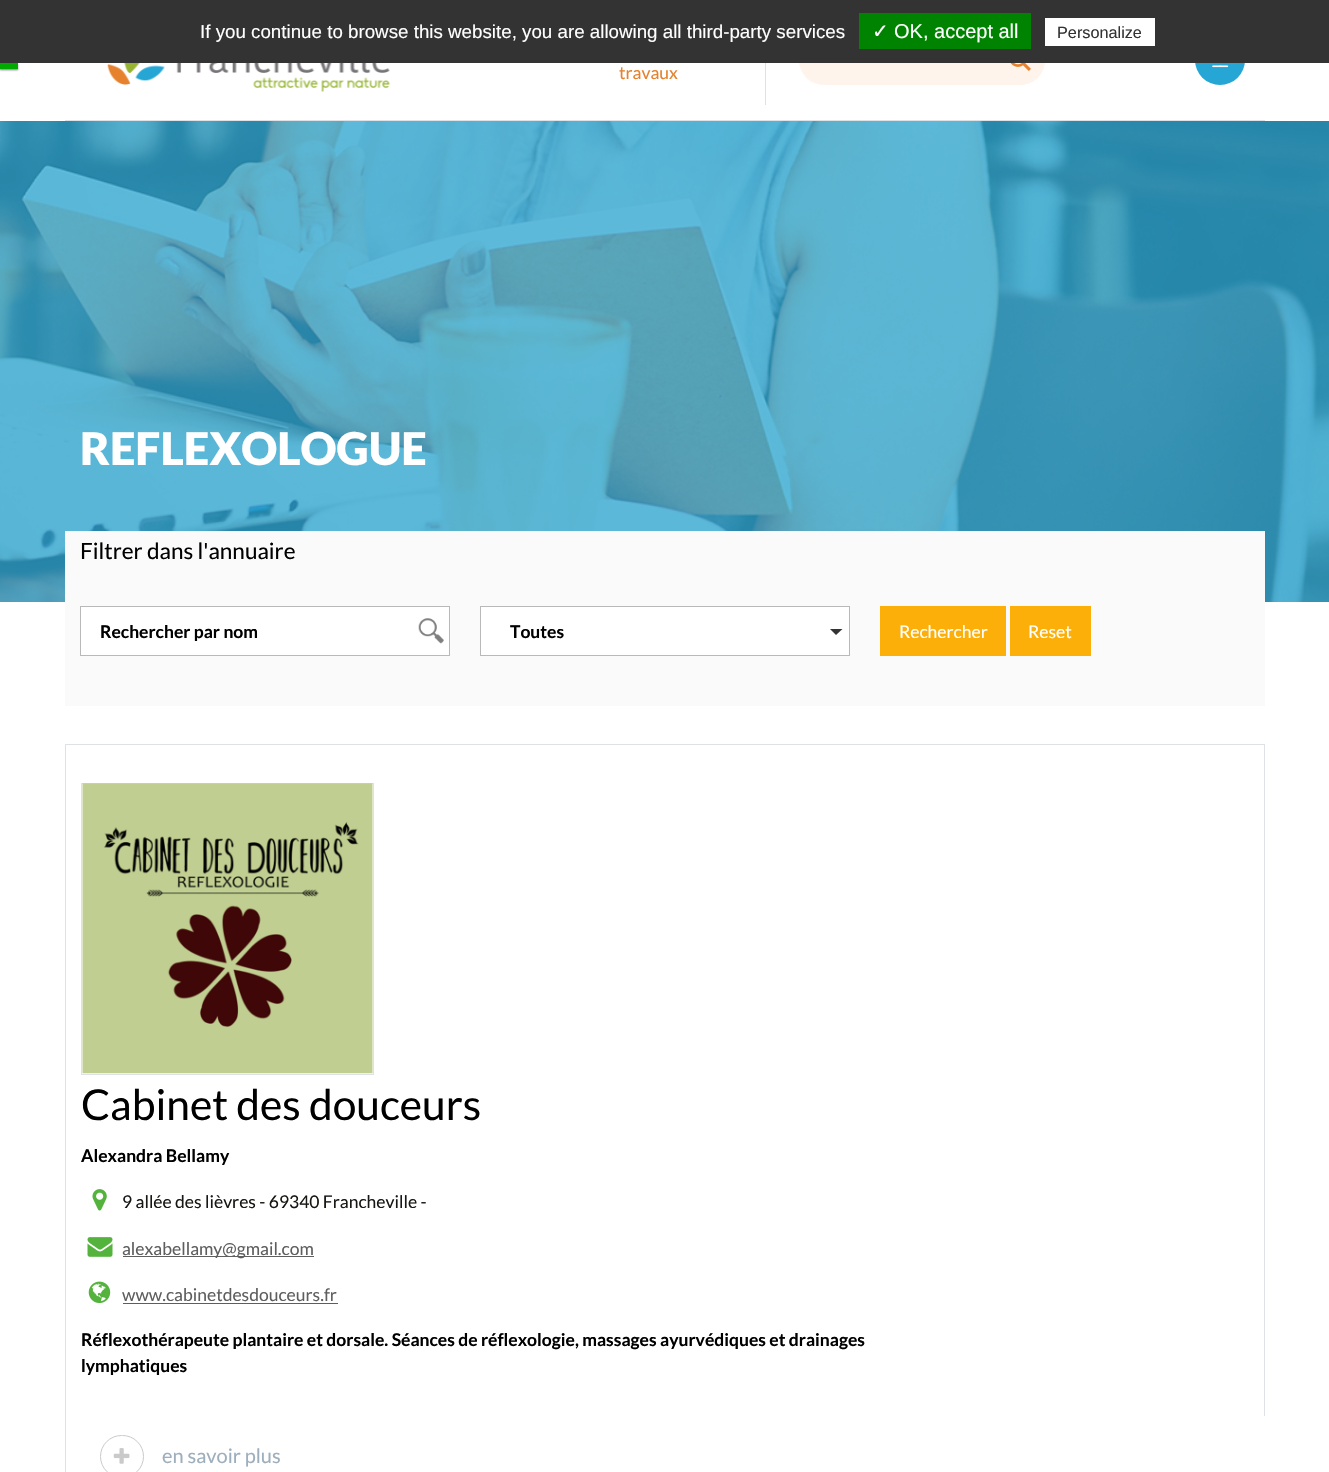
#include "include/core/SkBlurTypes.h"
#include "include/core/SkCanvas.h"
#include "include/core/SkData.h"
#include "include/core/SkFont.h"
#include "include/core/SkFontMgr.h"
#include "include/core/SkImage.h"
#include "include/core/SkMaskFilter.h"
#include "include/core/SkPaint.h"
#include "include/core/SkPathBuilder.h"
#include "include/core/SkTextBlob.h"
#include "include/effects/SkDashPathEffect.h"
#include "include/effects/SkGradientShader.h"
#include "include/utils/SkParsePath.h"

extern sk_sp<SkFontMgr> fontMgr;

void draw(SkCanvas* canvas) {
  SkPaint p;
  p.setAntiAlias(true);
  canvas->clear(SK_ColorWHITE);
  p.setColor(SkColorSetRGB(85, 85, 85));
  p.setMaskFilter(SkMaskFilter::MakeBlur(kNormal_SkBlurStyle, 1));
  canvas->drawRect(SkRect::MakeLTRB(0, 64, 18, 70), p);
  p.setMaskFilter(nullptr);
  p.setColor(SK_ColorWHITE);
  p.setMaskFilter(SkMaskFilter::MakeBlur(kNormal_SkBlurStyle, 1));
  canvas->drawRect(SkRect::MakeLTRB(0, 63, 18, 69), p);
  p.setMaskFilter(nullptr);
  p.setColor(SkColorSetRGB(254, 244, 235));
  canvas->drawRoundRect(SkRect::MakeLTRB(799, 35, 1045, 85), 25, 25, p);
  canvas->save();
  canvas->clipRect(SkRect::MakeLTRB(995, 35, 1045, 85));
  p.setColor(SkColorSetARGB(163, 255, 255, 255));
  canvas->drawPath(SkPathBuilder(SkPathFillType::kEvenOdd).moveTo(871, -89).lineTo(1169, -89).lineTo(1169, 209).lineTo(871, 209).close().moveTo(994, 36).lineTo(1044, 36).lineTo(1044, 86).lineTo(994, 86).close().detach(), p);
  canvas->restore();
  p.setColor(SkColorSetRGB(254, 244, 235));
  canvas->drawCircle(1020, 60, 25, p);
  p.setColor(SkColorSetRGB(37, 166, 213));
  canvas->drawCircle(1220, 60, 25, p);
  p.setColor(SkColorSetRGB(51, 51, 51));
  canvas->drawRect(SkRect::MakeLTRB(0, 0, 1329, 63), p);
  p.setColor(SkColorSetRGB(0, 131, 0));
  canvas->drawRect(SkRect::MakeLTRB(859, 13, 1031, 49), p);
  p.setColor(SK_ColorWHITE);
  canvas->drawRect(SkRect::MakeLTRB(1045, 18, 1155, 46), p);
  p.setColor(SkColorSetRGB(0, 170, 0));
  canvas->drawRect(SkRect::MakeLTRB(0, 63, 18, 69), p);
  p.setColor(SkColorSetRGB(222, 226, 230));
  canvas->drawRect(SkRect::MakeLTRB(65, 120, 1265, 121), p);
  canvas->drawImageRect(SkImages::DeferredFromEncodedData(SkData::MakeFromFileName("images/1.png")), SkRect::MakeLTRB(107, 63, 391, 92), SkSamplingOptions());
  canvas->drawRect(SkRect::MakeLTRB(765, 63, 766, 105), p);
  canvas->drawImageRect(SkImages::DeferredFromEncodedData(SkData::MakeFromFileName("images/2.png")), SkRect::MakeLTRB(1010, 63, 1031, 71), SkSamplingOptions());
  canvas->drawImageRect(SkImages::DeferredFromEncodedData(SkData::MakeFromFileName("images/3.png")), SkRect::MakeLTRB(1212, 65, 1229, 68), SkSamplingOptions());
  canvas->drawImageRect(SkImages::DeferredFromEncodedData(SkData::MakeFromFileName("images/4.png")), SkRect::MakeLTRB(0, 121, 1329, 602), SkSamplingOptions());
  p.setColor(SkColorSetRGB(250, 250, 250));
  canvas->drawRect(SkRect::MakeLTRB(65, 531, 1265, 706), p);
  p.setColor(SK_ColorWHITE);
  canvas->drawRect(SkRect::MakeLTRB(80.5f, 606.5f, 449.5f, 655.5f), p);
  p.setStyle(SkPaint::kStroke_Style);
  p.setStrokeWidth(1);
  p.setColor(SkColorSetRGB(185, 185, 185));
  canvas->drawRect(SkRect::MakeLTRB(80.5f, 606.5f, 449.5f, 655.5f), p);
  canvas->drawImageRect(SkImages::DeferredFromEncodedData(SkData::MakeFromFileName("images/5.png")), SkRect::MakeLTRB(418, 618, 444, 644), SkSamplingOptions());
  p.setStyle(SkPaint::kFill_Style);
  p.setColor(SK_ColorWHITE);
  canvas->drawRect(SkRect::MakeLTRB(480.5f, 606.5f, 849.5f, 655.5f), p);
  p.setStyle(SkPaint::kStroke_Style);
  p.setColor(SkColorSetRGB(185, 185, 185));
  canvas->drawRect(SkRect::MakeLTRB(480.5f, 606.5f, 849.5f, 655.5f), p);
  p.setStyle(SkPaint::kFill_Style);
  p.setColor(SkColorSetRGB(51, 51, 51));
  canvas->drawPath(SkPathBuilder().moveTo(830, 629).lineTo(842.5f, 629).lineTo(836, 635).close().detach(), p);
  p.setColor(SkColorSetRGB(253, 175, 9));
  canvas->drawRect(SkRect::MakeLTRB(880, 606, 1006, 656), p);
  canvas->drawRect(SkRect::MakeLTRB(1010, 606, 1091, 656), p);
  p.setStyle(SkPaint::kStroke_Style);
  p.setColor(SkColorSetRGB(222, 226, 230));
  canvas->drawRect(SkRect::MakeLTRB(65.5f, 744.5f, 1264.5f, 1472.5f), p);
  canvas->drawRect(SkRect::MakeLTRB(81.5f, 783.5f, 373.5f, 1074.5f), p);
  canvas->drawImageRect(SkImages::DeferredFromEncodedData(SkData::MakeFromFileName("images/6.png")), SkRect::MakeLTRB(82, 783, 373, 1074), SkSamplingOptions());
  canvas->drawImageRect(SkImages::DeferredFromEncodedData(SkData::MakeFromFileName("images/7.png")), SkRect::MakeLTRB(92, 1189, 107, 1211), SkSamplingOptions());
  canvas->drawImageRect(SkImages::DeferredFromEncodedData(SkData::MakeFromFileName("images/8.png")), SkRect::MakeLTRB(87, 1237, 113, 1257), SkSamplingOptions());
  p.setStyle(SkPaint::kFill_Style);
  p.setColor(SkColorSetRGB(94, 94, 94));
  canvas->drawRect(SkRect::MakeLTRB(123, 1256, 314, 1257), p);
  canvas->drawImageRect(SkImages::DeferredFromEncodedData(SkData::MakeFromFileName("images/9.png")), SkRect::MakeLTRB(88, 1281, 111, 1303), SkSamplingOptions());
  canvas->drawRect(SkRect::MakeLTRB(123, 1303, 338, 1304), p);
  p.setColor(SK_ColorWHITE);
  canvas->drawRect(SkRect::MakeLTRB(1264, 1416, 1265, 1472), p);
  p.setStyle(SkPaint::kStroke_Style);
  p.setColor(SkColorSetRGB(202, 202, 202));
  canvas->drawRoundRect(SkRect::MakeLTRB(100.5f, 1435.5f, 143.5f, 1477.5f), 21, 21, p);
  canvas->drawImageRect(SkImages::DeferredFromEncodedData(SkData::MakeFromFileName("images/10.png")), SkRect::MakeLTRB(113, 1448, 130, 1464), SkSamplingOptions());
  SkFont font1(fontMgr->matchFamilyStyle("Liberation Sans", SkFontStyle::Normal()), 18.75f);
  font1.setSubpixel(true);
  p.setStyle(SkPaint::kFill_Style);
  p.setColor(SK_ColorWHITE);
  canvas->drawString("If you continue to browse this website, you are allowing all third-party services", 200, 38, font1, p);
  SkFont font2(fontMgr->matchFamilyStyle("DejaVu Sans", SkFontStyle::Normal()), 20);
  font2.setSubpixel(true);
  canvas->drawString("✓", 872, 38, font2, p);
  SkFont font3(fontMgr->matchFamilyStyle("Liberation Sans", SkFontStyle::Normal()), 20);
  font3.setSubpixel(true);
  canvas->drawString("OK, accept all", 894, 38, font3, p);
  SkFont font4(fontMgr->matchFamilyStyle("Liberation Sans", SkFontStyle::Normal()), 16.25f);
  font4.setSubpixel(true);
  p.setColor(SkColorSetRGB(51, 51, 51));
  canvas->drawString("Personalize", 1057, 38, font4, p);
  SkFont font5(fontMgr->matchFamilyStyle("Lato", SkFontStyle::Normal()), 17.5f);
  font5.setSubpixel(true);
  p.setColor(SkColorSetRGB(230, 130, 45));
  canvas->drawString("travaux", 619, 79, font5, p);
  SkFont font6(fontMgr->matchFamilyStyle("Lato", SkFontStyle(900, SkFontStyle::kNormal_Width, SkFontStyle::kUpright_Slant)), 45);
  font6.setSubpixel(true);
  p.setColor(SK_ColorWHITE);
  canvas->drawString("REFLEXOLOGUE", 80, 465, font6, p);
  SkFont font7(fontMgr->matchFamilyStyle("Lato", SkFontStyle::Normal()), 22.5f);
  font7.setSubpixel(true);
  p.setColor(SK_ColorBLACK);
  canvas->drawString("Filtrer dans l'annuaire", 80, 559, font7, p);
  SkFont font8(fontMgr->matchFamilyStyle("Lato", SkFontStyle::Bold()), 17.5f);
  font8.setSubpixel(true);
  canvas->drawString("Rechercher par nom", 100, 638, font8, p);
  canvas->drawString("Toutes", 510, 638, font8, p);
  p.setColor(SK_ColorWHITE);
  canvas->drawString("Rechercher", 899, 638, font5, p);
  canvas->drawString("Reset", 1028, 638, font5, p);
  SkFont font9(fontMgr->matchFamilyStyle("Lato", SkFontStyle::Normal()), 42.5f);
  font9.setSubpixel(true);
  p.setColor(SK_ColorBLACK);
  canvas->drawString("Cabinet des douceurs", 81, 1120, font9, p);
  canvas->drawString("Alexandra Bellamy", 81, 1162, font8, p);
  p.setColor(SkColorSetRGB(23, 23, 20));
  canvas->drawString("9 allée des lièvres - 69340 Francheville -", 122, 1208, font5, p);
  p.setColor(SkColorSetRGB(94, 94, 94));
  canvas->drawString("alexabellamy@gmail.com", 122, 1255, font5, p);
  canvas->drawString("www.cabinetdesdouceurs.fr", 122, 1301, font5, p);
  p.setColor(SK_ColorBLACK);
  canvas->drawString("Réflexothérapeute plantaire et dorsale. Séances de réflexologie, massages ayurvédiques et drainages", 81, 1346, font8, p);
  canvas->drawString("lymphatiques", 81, 1372, font8, p);
  SkFont font10(fontMgr->matchFamilyStyle("Lato", SkFontStyle::Normal()), 20);
  font10.setSubpixel(true);
  p.setColor(SkColorSetRGB(157, 175, 189));
  canvas->drawString("en savoir plus", 162, 1463, font10, p);
}
